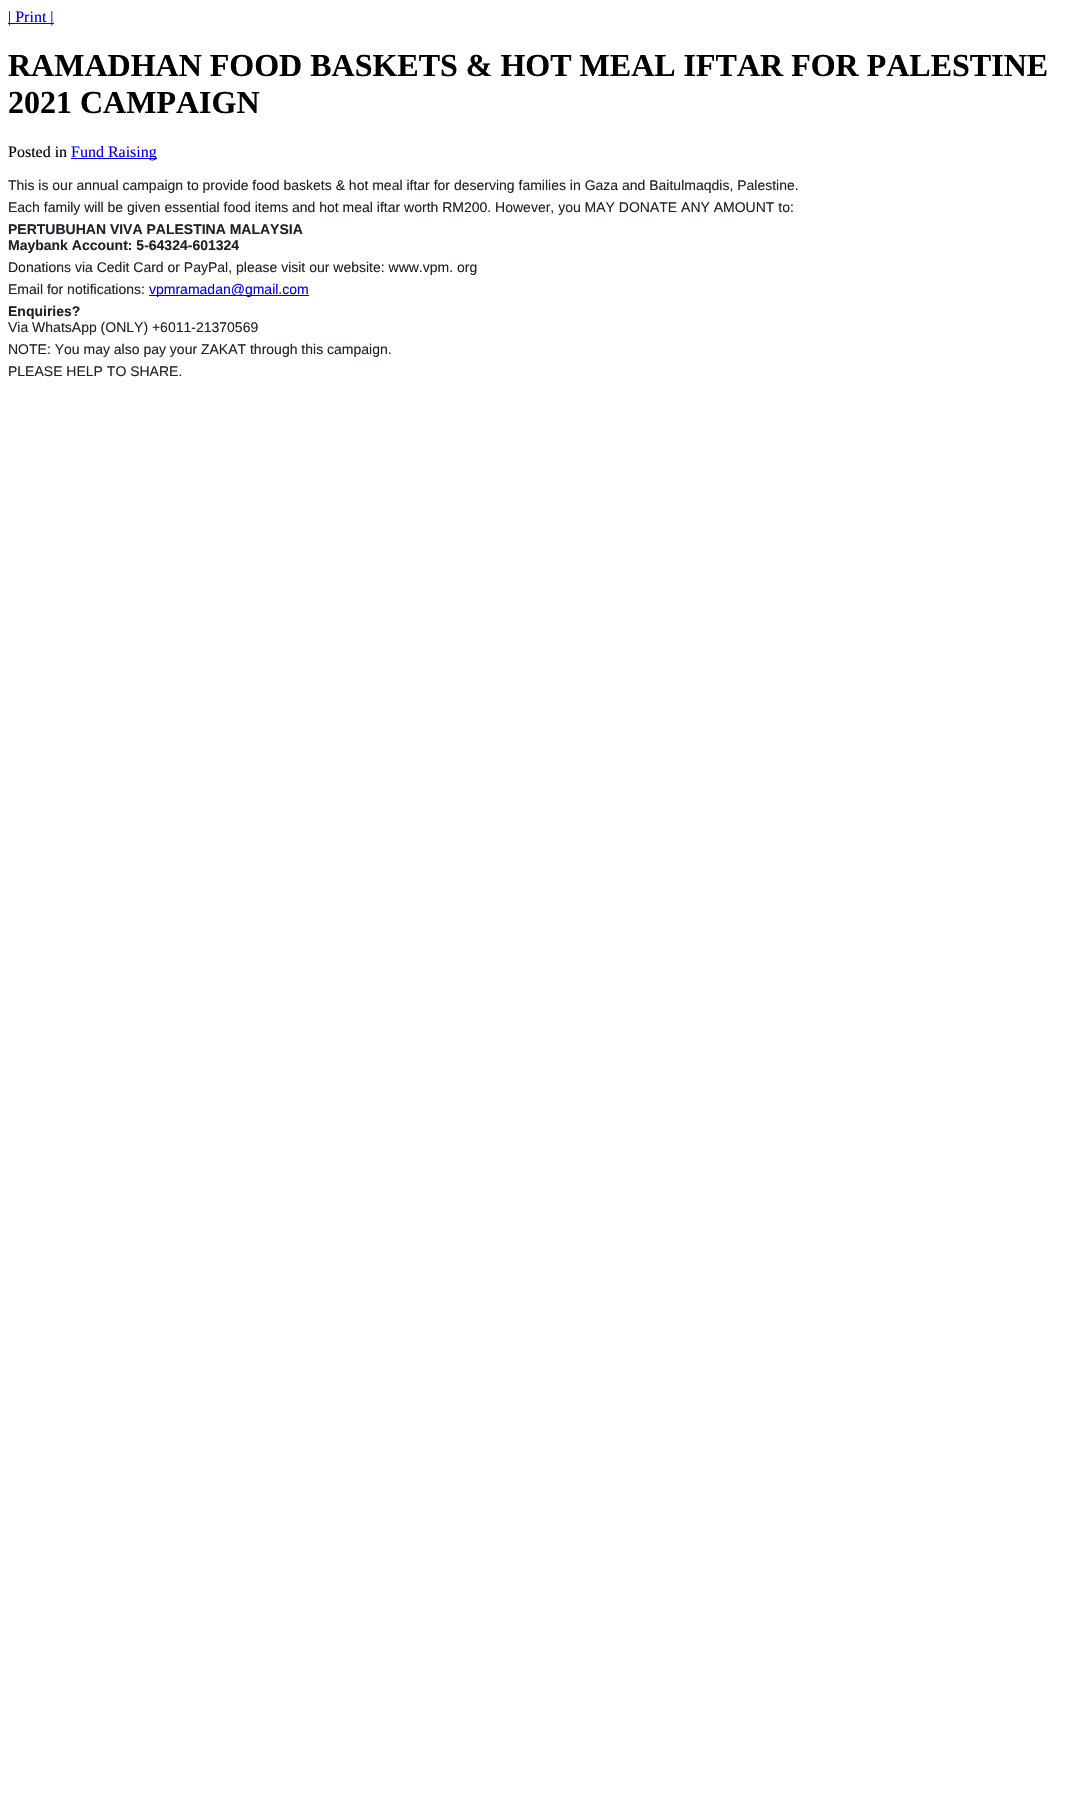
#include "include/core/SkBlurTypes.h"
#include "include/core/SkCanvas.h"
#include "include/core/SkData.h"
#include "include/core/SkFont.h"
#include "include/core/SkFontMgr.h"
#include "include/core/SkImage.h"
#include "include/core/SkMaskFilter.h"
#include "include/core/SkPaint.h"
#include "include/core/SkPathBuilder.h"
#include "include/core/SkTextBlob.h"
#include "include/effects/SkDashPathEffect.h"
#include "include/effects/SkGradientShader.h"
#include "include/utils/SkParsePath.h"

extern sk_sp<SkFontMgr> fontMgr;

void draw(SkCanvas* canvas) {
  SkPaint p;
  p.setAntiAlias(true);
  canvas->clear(SK_ColorWHITE);
  p.setColor(SkColorSetRGB(0, 0, 238));
  canvas->drawRect(SkRect::MakeLTRB(8, 23, 54, 24), p);
  canvas->drawRect(SkRect::MakeLTRB(71, 158, 157, 159), p);
  canvas->drawRect(SkRect::MakeLTRB(149, 295, 309, 296), p);
  SkFont font1(fontMgr->matchFamilyStyle("Liberation Serif", SkFontStyle::Normal()), 16);
  font1.setSubpixel(true);
  canvas->drawString("| Print |", 8, 22, font1, p);
  SkFont font2(fontMgr->matchFamilyStyle("Liberation Serif", SkFontStyle::Bold()), 32);
  font2.setSubpixel(true);
  p.setColor(SK_ColorBLACK);
  canvas->drawString("RAMADHAN FOOD BASKETS & HOT MEAL IFTAR FOR PALESTINE", 8, 76, font2, p);
  canvas->drawString("2021 CAMPAIGN", 8, 113, font2, p);
  canvas->drawString("Posted in", 8, 157, font1, p);
  p.setColor(SkColorSetRGB(0, 0, 238));
  canvas->drawString("Fund Raising", 71, 157, font1, p);
  SkFont font3(fontMgr->matchFamilyStyle("Liberation Sans", SkFontStyle::Normal()), 14);
  font3.setSubpixel(true);
  p.setColor(SkColorSetRGB(29, 33, 41));
  canvas->drawString("This is our annual campaign to provide food baskets & hot meal iftar for deserving families in Gaza and Baitulmaqdis, Palestine.", 8, 190, font3, p);
  canvas->drawString("Each family will be given essential food items and hot meal iftar worth RM200. However, you MAY DONATE ANY AMOUNT to:", 8, 212, font3, p);
  SkFont font4(fontMgr->matchFamilyStyle("Liberation Sans", SkFontStyle::Bold()), 14);
  font4.setSubpixel(true);
  canvas->drawString("PERTUBUHAN VIVA PALESTINA MALAYSIA", 8, 234, font4, p);
  canvas->drawString("Maybank Account: 5-64324-601324", 8, 250, font4, p);
  canvas->drawString("Donations via Cedit Card or PayPal, please visit our website: www.vpm. org", 8, 272, font3, p);
  canvas->drawString("Email for notifications:", 8, 294, font3, p);
  p.setColor(SkColorSetRGB(0, 0, 238));
  canvas->drawString("vpmramadan@gmail.com", 149, 294, font3, p);
  p.setColor(SkColorSetRGB(29, 33, 41));
  canvas->drawString("Enquiries?", 8, 316, font4, p);
  canvas->drawString("Via WhatsApp (ONLY) +6011-21370569", 8, 332, font3, p);
  canvas->drawString("NOTE: You may also pay your ZAKAT through this campaign.", 8, 354, font3, p);
  canvas->drawString("PLEASE HELP TO SHARE.", 8, 376, font3, p);
}
